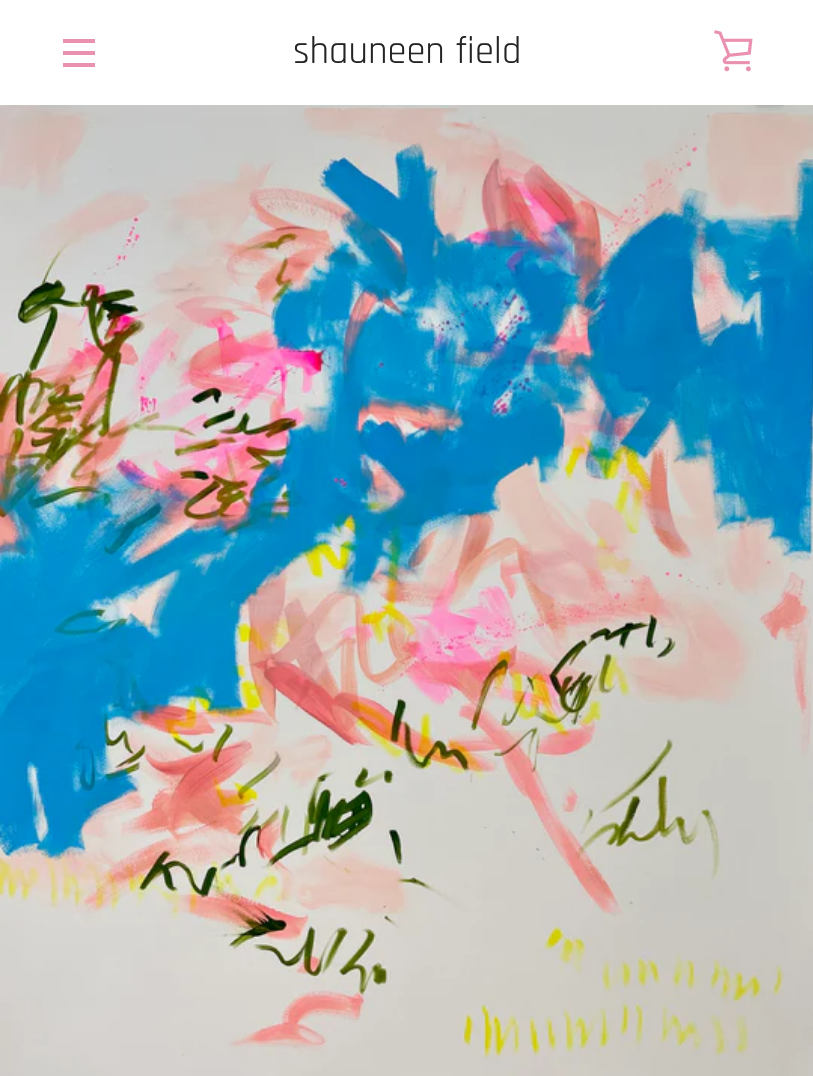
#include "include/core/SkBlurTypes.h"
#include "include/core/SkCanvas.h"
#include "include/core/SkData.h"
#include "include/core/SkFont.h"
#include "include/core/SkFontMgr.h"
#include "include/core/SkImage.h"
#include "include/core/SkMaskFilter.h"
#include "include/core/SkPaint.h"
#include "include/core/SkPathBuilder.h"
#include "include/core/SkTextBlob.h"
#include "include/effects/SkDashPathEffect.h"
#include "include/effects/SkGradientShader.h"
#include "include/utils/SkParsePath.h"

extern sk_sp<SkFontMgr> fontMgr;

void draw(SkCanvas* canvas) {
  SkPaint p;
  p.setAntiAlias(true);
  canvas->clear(SK_ColorWHITE);
  p.setColor(SkColorSetRGB(234, 145, 177));
  canvas->drawRect(SkRect::MakeLTRB(63, 39, 95, 43), p);
  canvas->drawRect(SkRect::MakeLTRB(63, 51, 95, 55), p);
  canvas->drawRect(SkRect::MakeLTRB(63, 63, 95, 67), p);
  canvas->drawImageRect(SkImages::DeferredFromEncodedData(SkData::MakeFromFileName("images/1.png")), SkRect::MakeLTRB(714, 30, 753, 72), SkSamplingOptions());
  canvas->drawImageRect(SkImages::DeferredFromEncodedData(SkData::MakeFromFileName("images/2.png")), SkRect::MakeLTRB(0, 105, 813, 1076), SkSamplingOptions());
  SkFont font1(fontMgr->matchFamilyStyle("Rajdhani", SkFontStyle::Normal()), 38.5f);
  font1.setSubpixel(true);
  p.setColor(SkColorSetRGB(36, 36, 36));
  canvas->drawString("shauneen field", 293, 63, font1, p);
}
